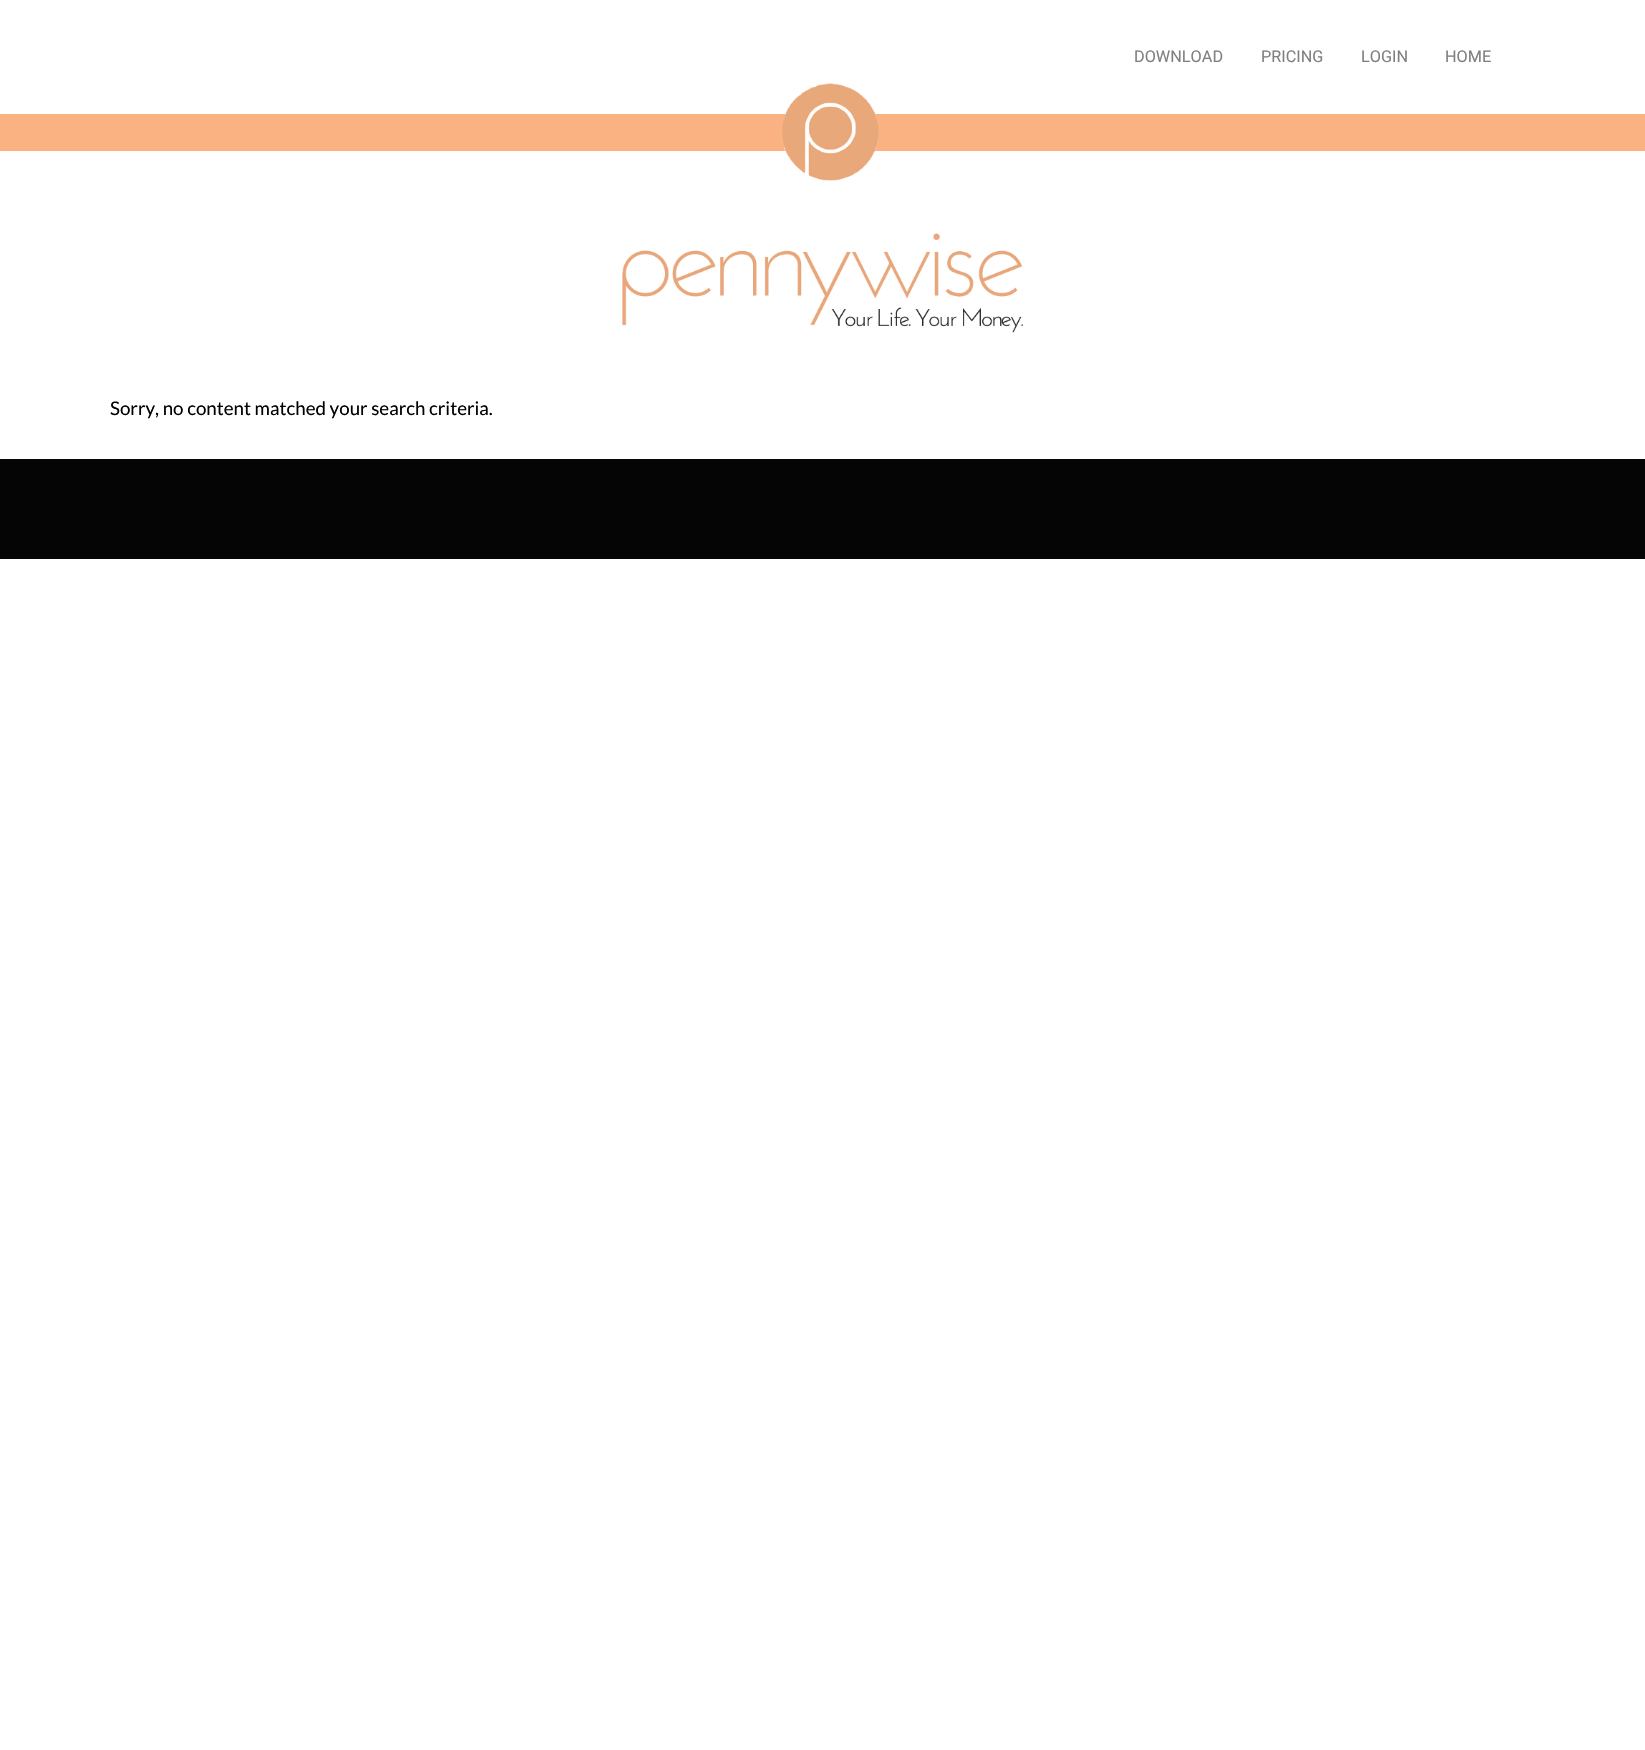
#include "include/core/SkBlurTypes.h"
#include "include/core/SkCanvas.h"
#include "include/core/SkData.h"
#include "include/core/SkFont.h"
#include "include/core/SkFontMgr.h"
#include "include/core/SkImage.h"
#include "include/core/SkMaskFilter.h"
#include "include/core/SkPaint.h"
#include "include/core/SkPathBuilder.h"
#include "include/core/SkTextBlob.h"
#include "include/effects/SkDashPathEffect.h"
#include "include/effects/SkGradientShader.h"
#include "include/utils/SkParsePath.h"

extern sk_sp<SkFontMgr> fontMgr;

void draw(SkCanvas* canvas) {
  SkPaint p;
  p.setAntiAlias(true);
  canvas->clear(SK_ColorWHITE);
  p.setColor(SkColorSetRGB(251, 178, 131));
  canvas->drawRect(SkRect::MakeLTRB(0, 114, 1645, 151), p);
  canvas->drawImageRect(SkImages::DeferredFromEncodedData(SkData::MakeFromFileName("images/1.png")), SkRect::MakeLTRB(622, 83, 1023, 333), SkSamplingOptions());
  p.setColor(SkColorSetRGB(6, 5, 6));
  canvas->drawRect(SkRect::MakeLTRB(0, 459, 1645, 559), p);
  SkFont font1(fontMgr->matchFamilyStyle("Roboto", SkFontStyle::Normal()), 16.25f);
  font1.setSubpixel(true);
  p.setColor(SkColorSetRGB(127, 128, 128));
  canvas->drawString("DOWNLOAD", 1134, 62, font1, p);
  canvas->drawString("PRICING", 1261, 62, font1, p);
  canvas->drawString("LOGIN", 1361, 62, font1, p);
  canvas->drawString("HOME", 1445, 62, font1, p);
  SkFont font2(fontMgr->matchFamilyStyle("Lato", SkFontStyle::Normal()), 18.75f);
  font2.setSubpixel(true);
  p.setColor(SK_ColorBLACK);
  canvas->drawString("Sorry, no content matched your search criteria.", 110, 415, font2, p);
}
